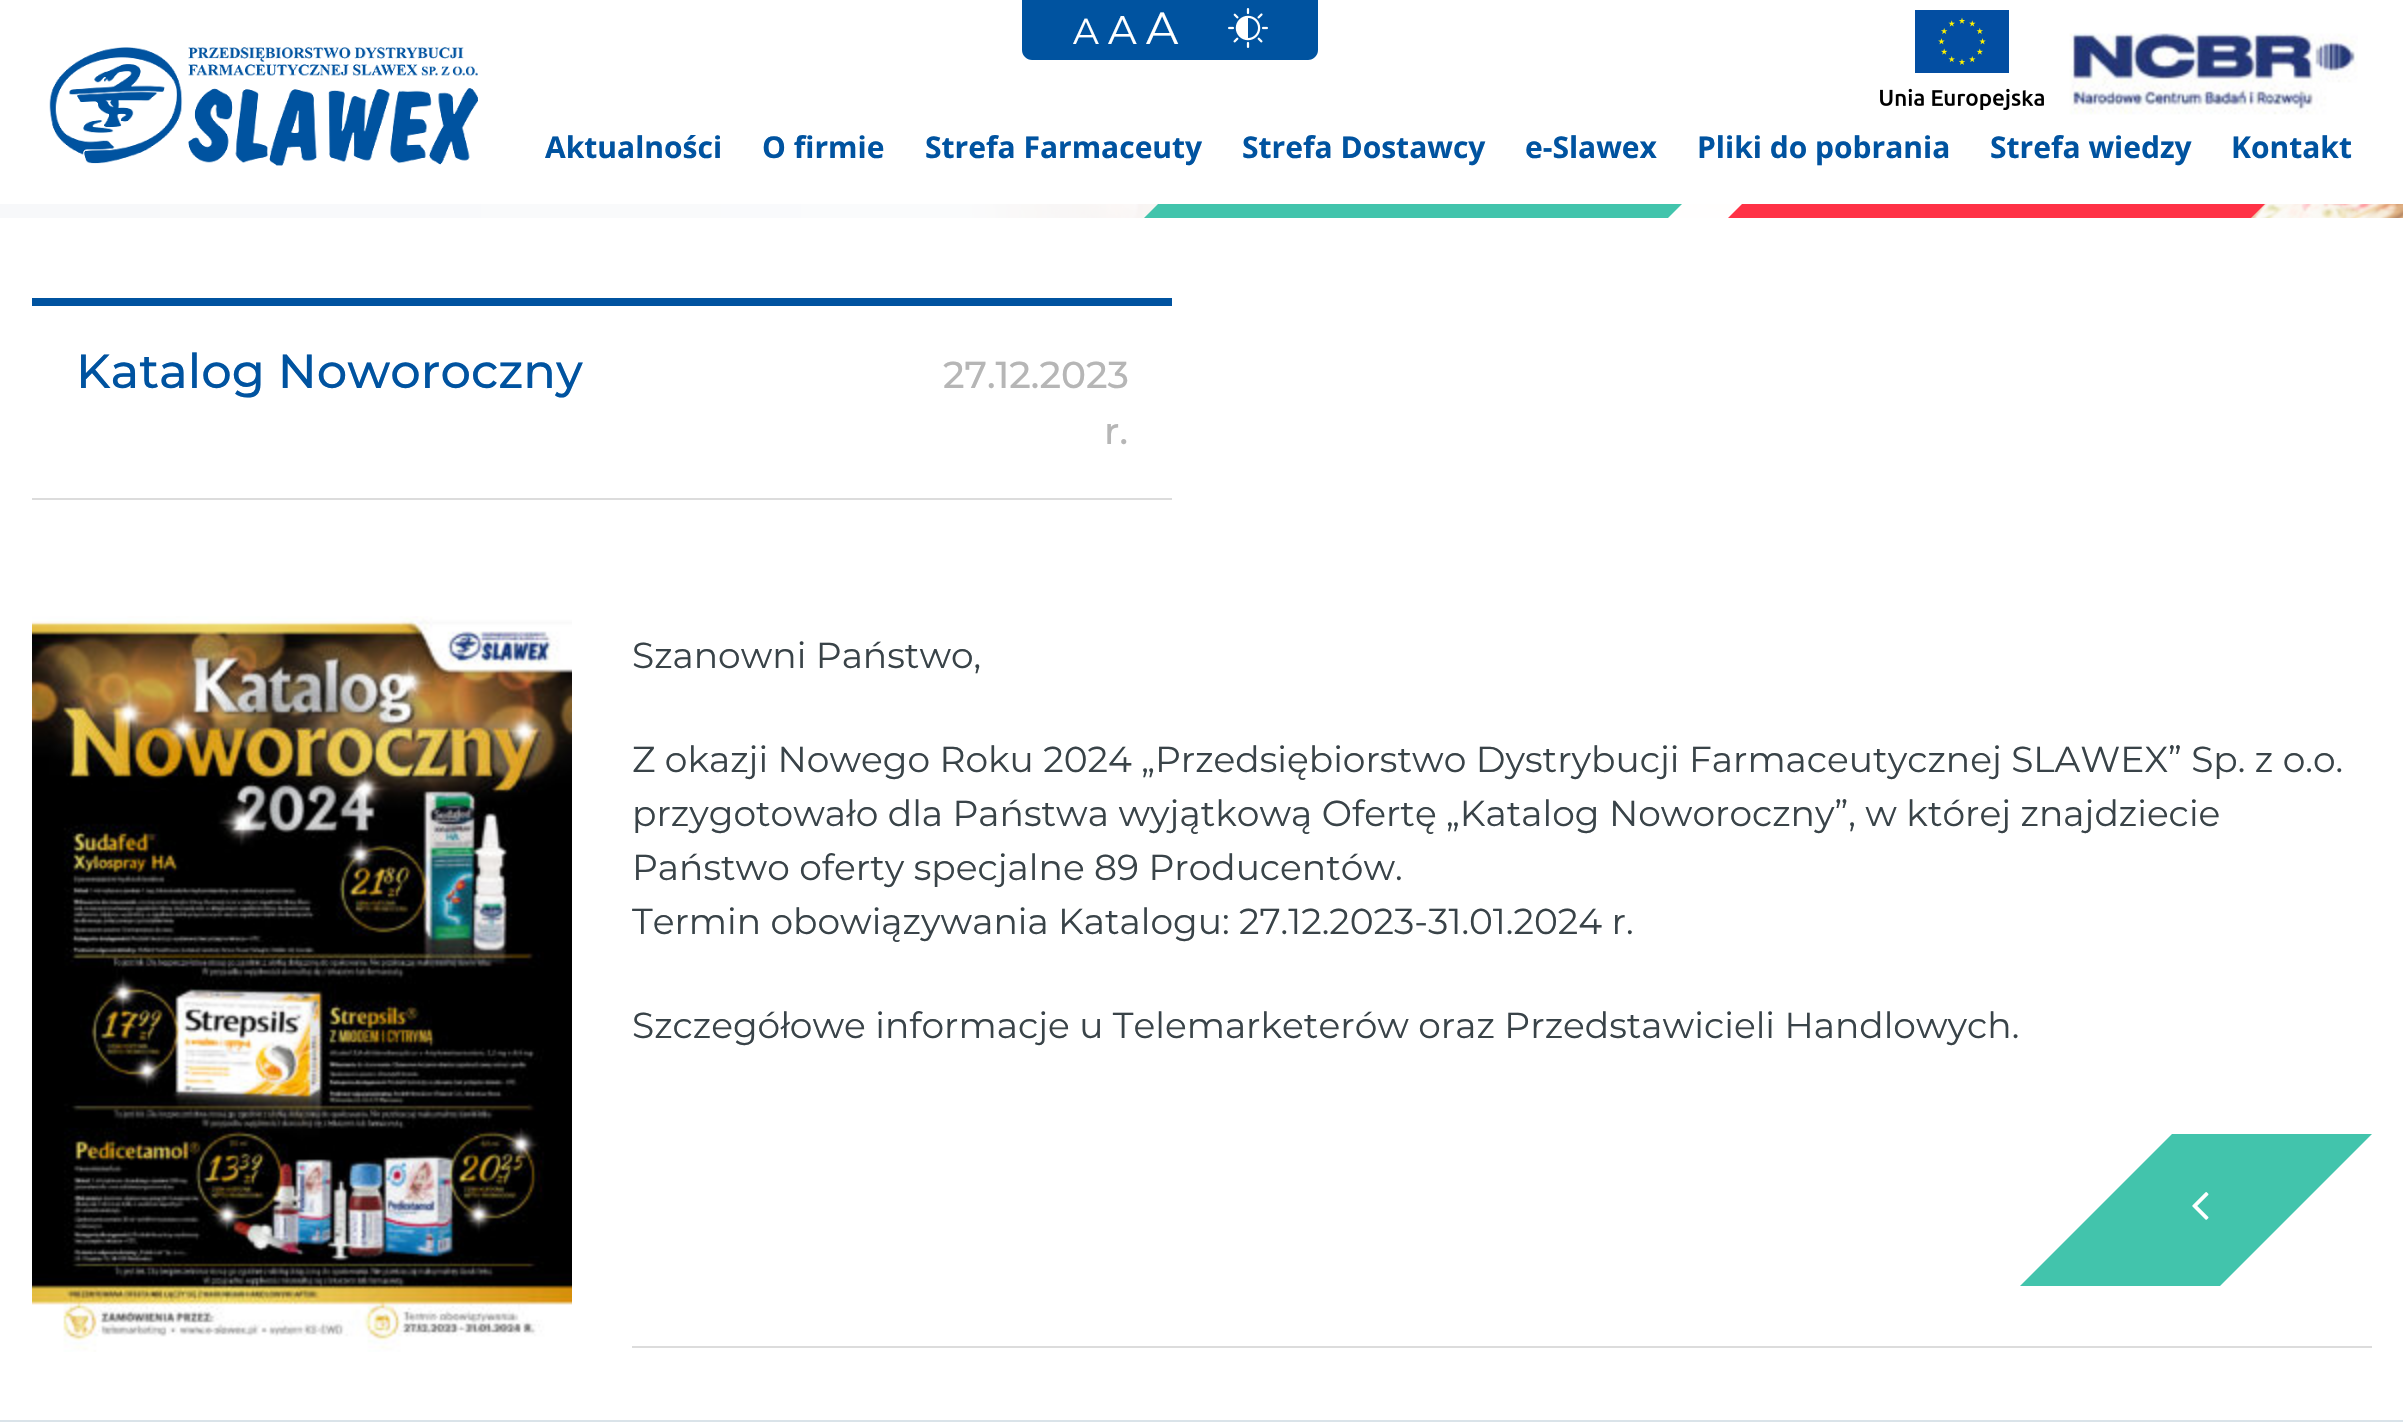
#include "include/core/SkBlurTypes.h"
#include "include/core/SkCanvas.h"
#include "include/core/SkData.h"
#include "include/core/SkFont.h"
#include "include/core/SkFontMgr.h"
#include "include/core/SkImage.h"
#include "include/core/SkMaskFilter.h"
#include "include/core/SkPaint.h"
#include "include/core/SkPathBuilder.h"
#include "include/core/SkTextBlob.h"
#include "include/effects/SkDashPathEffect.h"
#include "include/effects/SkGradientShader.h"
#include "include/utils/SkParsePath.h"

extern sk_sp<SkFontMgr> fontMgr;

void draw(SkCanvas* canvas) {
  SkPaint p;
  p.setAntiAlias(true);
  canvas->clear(SK_ColorWHITE);
  canvas->drawImageRect(SkImages::DeferredFromEncodedData(SkData::MakeFromFileName("images/1.png")), SkRect::MakeLTRB(964, 204, 2403, 218), SkSamplingOptions());
  {
    const SkColor colors[] = {SkColorSetRGB(247, 248, 250), SkColorSetRGB(250, 251, 252), SkColorSetARGB(0, 250, 251, 252), SkColorSetARGB(0, 255, 255, 255)};
    const float stops[] = {0, 0.4f, 0.6f, 1};
    const SkPoint ends[] = {{0, -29}, {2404, -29}};
    p.setShader(SkGradientShader::MakeLinear(ends, colors, stops, 4, SkTileMode::kClamp));
    p.setAlpha(255);
  }
  canvas->drawRect(SkRect::MakeLTRB(0, 204, 1158, 218), p);
  p.setShader(nullptr);
  p.setColor(SkColorSetRGB(66, 196, 172));
  canvas->drawPath(SkPathBuilder().moveTo(1386, -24).lineTo(1910, -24).lineTo(1668, 218).lineTo(1144, 218).close().detach(), p);
  p.setColor(SkColorSetRGB(255, 50, 70));
  canvas->drawPath(SkPathBuilder().moveTo(1970, -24).lineTo(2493, -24).lineTo(2251, 218).lineTo(1728, 218).close().detach(), p);
  p.setColor(SK_ColorWHITE);
  canvas->drawRect(SkRect::MakeLTRB(1158, 0, 2403, 204), p);
  p.setColor(SkColorSetRGB(0, 83, 160));
  canvas->drawPath(SkPathBuilder().moveTo(1022, 0).lineTo(1318, 0).lineTo(1318, 50).cubicTo(1318, 55.5f, 1313.5f, 60, 1308, 60).lineTo(1032, 60).cubicTo(1026.5f, 60, 1022, 55.5f, 1022, 50).close().detach(), p);
  canvas->drawImageRect(SkImages::DeferredFromEncodedData(SkData::MakeFromFileName("images/2.png")), SkRect::MakeLTRB(1228, 8, 1268, 48), SkSamplingOptions());
  canvas->drawImageRect(SkImages::DeferredFromEncodedData(SkData::MakeFromFileName("images/3.png")), SkRect::MakeLTRB(1880, 10, 2044, 110), SkSamplingOptions());
  canvas->drawImageRect(SkImages::DeferredFromEncodedData(SkData::MakeFromFileName("images/4.png")), SkRect::MakeLTRB(2069, 33, 2358, 115), SkSamplingOptions());
  canvas->drawImageRect(SkImages::DeferredFromEncodedData(SkData::MakeFromFileName("images/5.png")), SkRect::MakeLTRB(49, 47, 478, 166), SkSamplingOptions());
  canvas->drawRect(SkRect::MakeLTRB(32, 298, 1172, 306), p);
  p.setColor(SkColorSetRGB(220, 220, 220));
  canvas->drawRect(SkRect::MakeLTRB(32, 498, 1172, 500), p);
  canvas->drawImageRect(SkImages::DeferredFromEncodedData(SkData::MakeFromFileName("images/6.png")), SkRect::MakeLTRB(32, 616, 572, 1352), SkSamplingOptions());
  canvas->drawRect(SkRect::MakeLTRB(632, 1346, 2372, 1348), p);
  p.setColor(SkColorSetRGB(66, 196, 172));
  canvas->drawPath(SkPathBuilder().moveTo(2172, 1134).lineTo(2372, 1134).lineTo(2220, 1286).lineTo(2020, 1286).close().detach(), p);
  canvas->drawImageRect(SkImages::DeferredFromEncodedData(SkData::MakeFromFileName("images/7.png")), SkRect::MakeLTRB(2192, 1192, 2209, 1220), SkSamplingOptions());
  p.setColor(SkColorSetRGB(218, 227, 233));
  canvas->drawRect(SkRect::MakeLTRB(0, 1420, 2403, 1422), p);
  SkFont font1(fontMgr->matchFamilyStyle("Montserrat", SkFontStyle::Normal()), 36);
  font1.setSubpixel(true);
  p.setColor(SK_ColorWHITE);
  canvas->drawString("A", 1073, 44, font1, p);
  SkFont font2(fontMgr->matchFamilyStyle("Montserrat", SkFontStyle::Normal()), 40);
  font2.setSubpixel(true);
  canvas->drawString("A", 1108, 44, font2, p);
  SkFont font3(fontMgr->matchFamilyStyle("Montserrat", SkFontStyle::Normal()), 45);
  font3.setSubpixel(true);
  canvas->drawString("A", 1146, 44, font3, p);
  SkFont font4(fontMgr->matchFamilyStyle("Open Sans", SkFontStyle::Bold()), 30);
  font4.setSubpixel(true);
  p.setColor(SkColorSetRGB(0, 83, 160));
  canvas->drawString("Aktualności", 545, 158, font4, p);
  canvas->drawString("O firmie", 762, 158, font4, p);
  canvas->drawString("Strefa Farmaceuty", 925, 158, font4, p);
  canvas->drawString("Strefa Dostawcy", 1242, 158, font4, p);
  canvas->drawString("e-Slawex", 1525, 158, font4, p);
  canvas->drawString("Pliki do pobrania", 1697, 158, font4, p);
  canvas->drawString("Strefa wiedzy", 1990, 158, font4, p);
  canvas->drawString("Kontakt", 2231, 158, font4, p);
  SkFont font5(fontMgr->matchFamilyStyle("Montserrat", SkFontStyle(500, SkFontStyle::kNormal_Width, SkFontStyle::kUpright_Slant)), 48);
  font5.setSubpixel(true);
  canvas->drawString("Katalog Noworoczny", 76, 388, font5, p);
  SkFont font6(fontMgr->matchFamilyStyle("Montserrat", SkFontStyle(500, SkFontStyle::kNormal_Width, SkFontStyle::kUpright_Slant)), 37.5f);
  font6.setSubpixel(true);
  p.setColor(SkColorSetRGB(182, 182, 182));
  canvas->drawString("27.12.2023", 943, 388, font6, p);
  canvas->drawString("r.", 1104, 444, font6, p);
  p.setColor(SkColorSetRGB(57, 67, 72));
  canvas->drawString("Szanowni Państwo,", 632, 668, font1, p);
  canvas->drawString("Z okazji Nowego Roku 2024 „Przedsiębiorstwo Dystrybucji Farmaceutycznej SLAWEX” Sp. z o.o.", 632, 772, font1, p);
  canvas->drawString("przygotowało dla Państwa wyjątkową Ofertę „Katalog Noworoczny”, w której znajdziecie", 632, 826, font1, p);
  canvas->drawString("Państwo oferty specjalne 89 Producentów.", 632, 880, font1, p);
  canvas->drawString("Termin obowiązywania Katalogu: 27.12.2023-31.01.2024 r.", 632, 934, font1, p);
  canvas->drawString("Szczegółowe informacje u Telemarketerów oraz Przedstawicieli Handlowych.", 632, 1038, font1, p);
}
